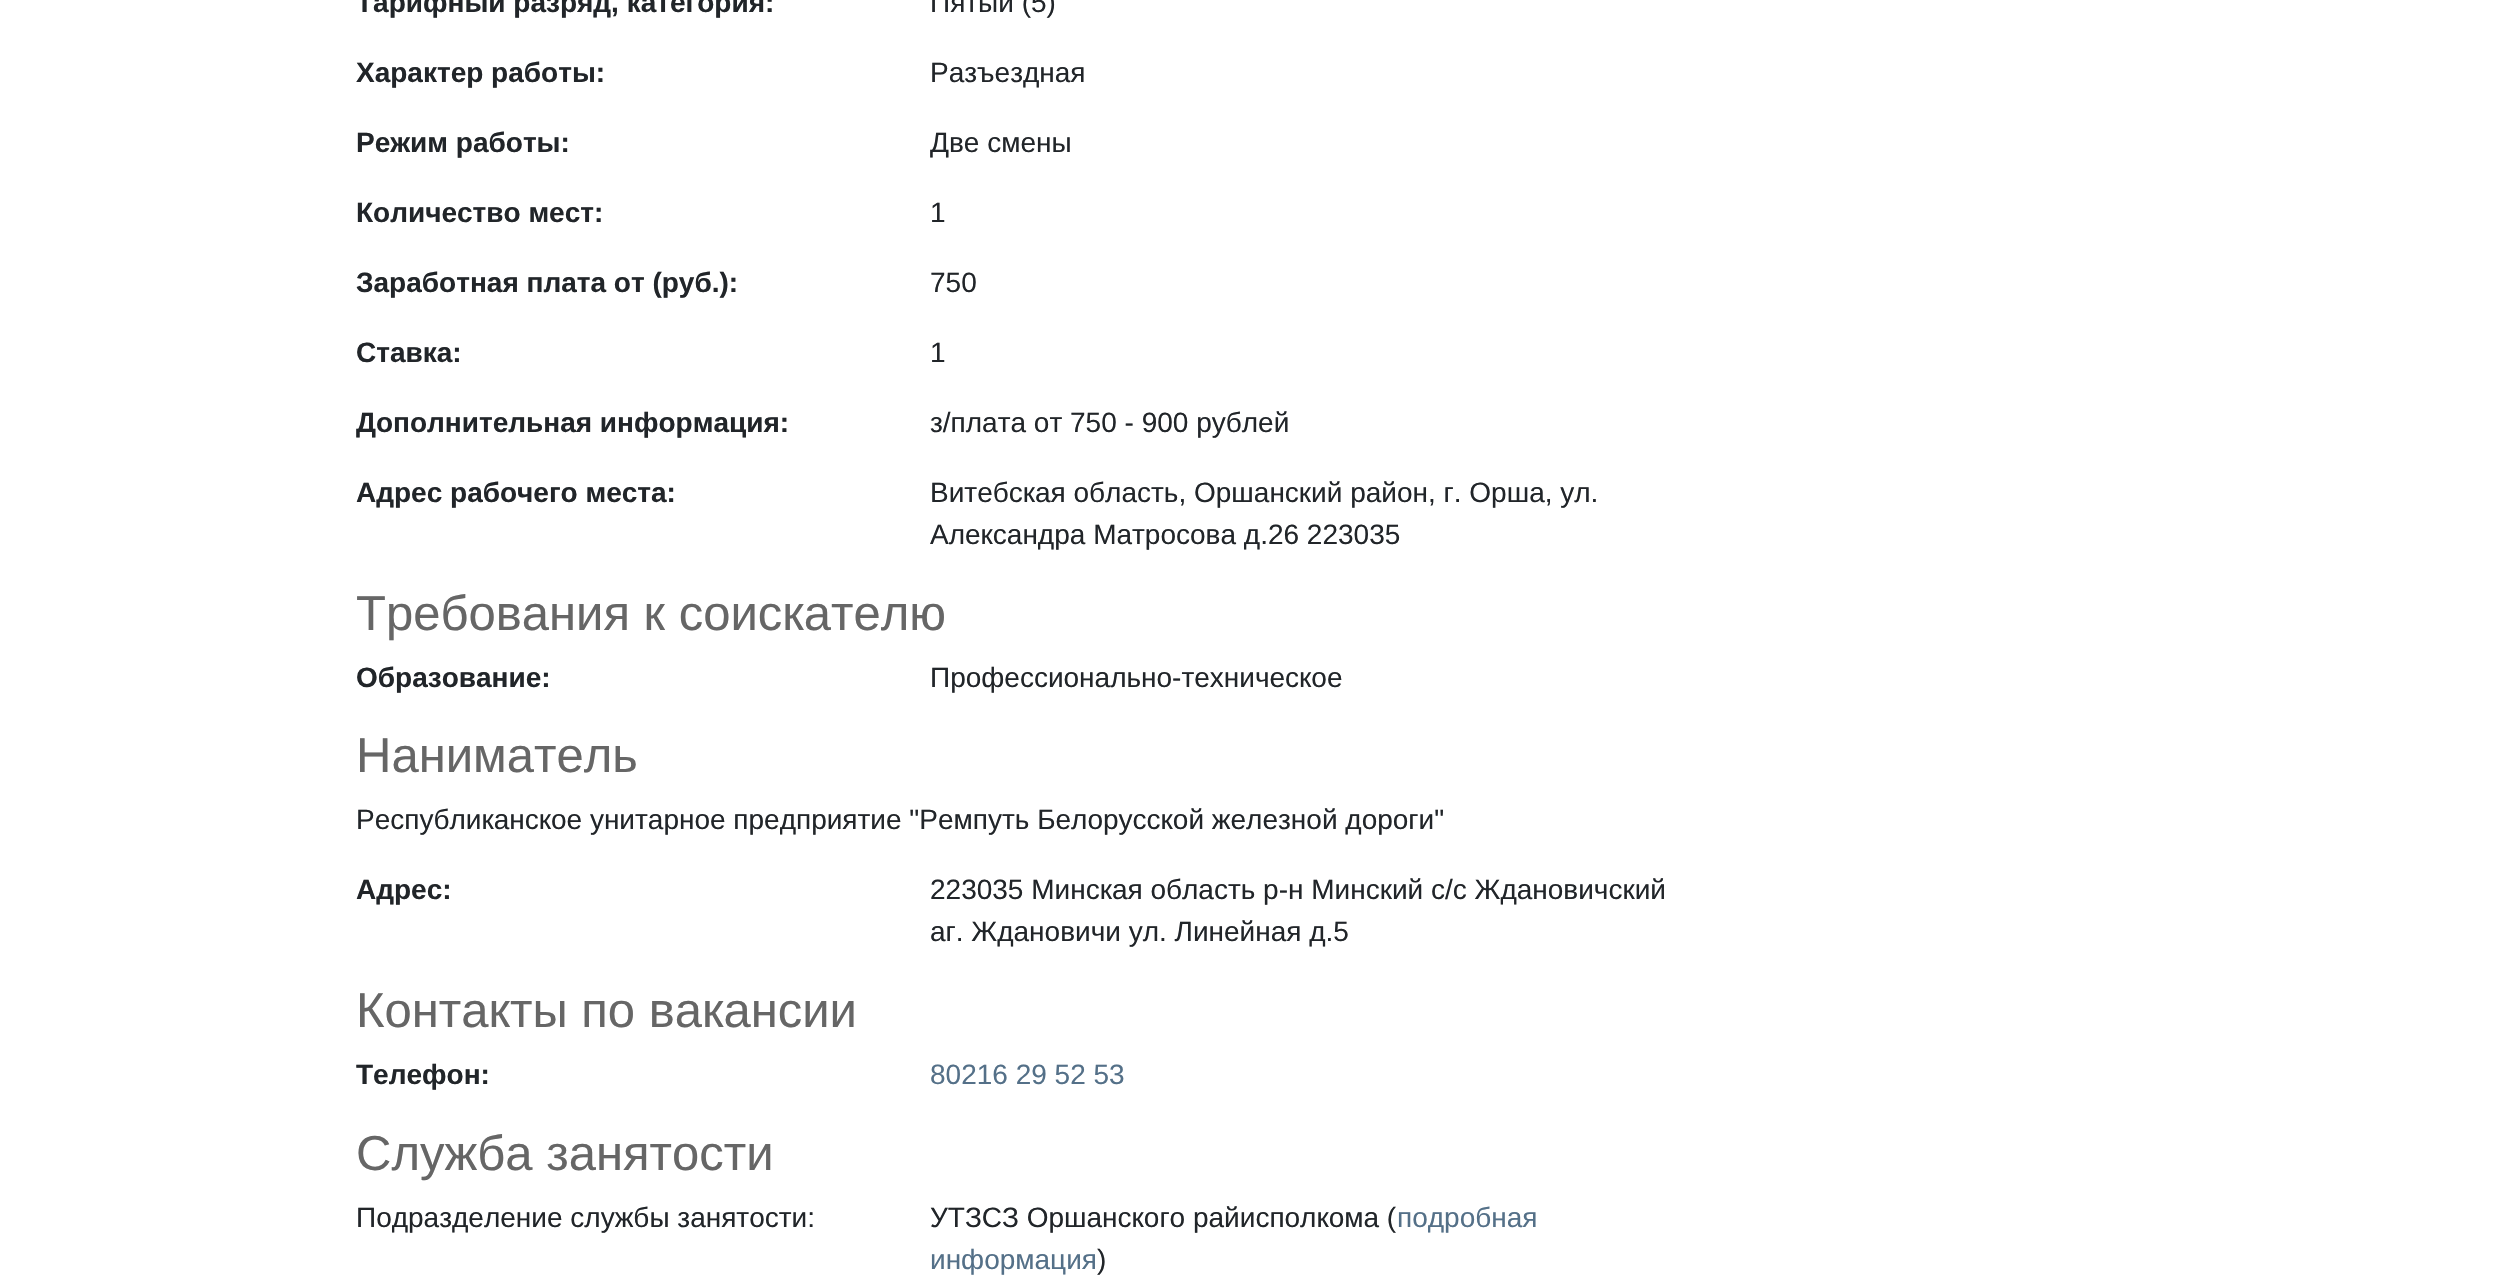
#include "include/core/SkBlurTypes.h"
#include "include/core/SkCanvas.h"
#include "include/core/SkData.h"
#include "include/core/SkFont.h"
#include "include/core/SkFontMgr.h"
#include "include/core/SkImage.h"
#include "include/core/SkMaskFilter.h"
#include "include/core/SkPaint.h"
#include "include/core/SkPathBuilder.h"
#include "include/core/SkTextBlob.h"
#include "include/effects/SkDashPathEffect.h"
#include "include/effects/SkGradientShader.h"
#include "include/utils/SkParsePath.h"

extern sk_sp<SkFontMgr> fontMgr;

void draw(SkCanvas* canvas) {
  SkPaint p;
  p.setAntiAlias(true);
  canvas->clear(SK_ColorWHITE);
  SkFont font1(fontMgr->matchFamilyStyle("Liberation Sans", SkFontStyle::Bold()), 28);
  font1.setSubpixel(true);
  p.setColor(SkColorSetRGB(33, 37, 41));
  canvas->drawString("Тарифный разряд, категория:", 356, 12, font1, p);
  SkFont font2(fontMgr->matchFamilyStyle("Liberation Sans", SkFontStyle::Normal()), 28);
  font2.setSubpixel(true);
  canvas->drawString("Пятый (5)", 930, 12, font2, p);
  canvas->drawString("Характер работы:", 356, 82, font1, p);
  canvas->drawString("Разъездная", 930, 82, font2, p);
  canvas->drawString("Режим работы:", 356, 152, font1, p);
  canvas->drawString("Две смены", 930, 152, font2, p);
  canvas->drawString("Количество мест:", 356, 222, font1, p);
  canvas->drawString("1", 930, 222, font2, p);
  canvas->drawString("Заработная плата от (руб.):", 356, 292, font1, p);
  canvas->drawString("750", 930, 292, font2, p);
  canvas->drawString("Ставка:", 356, 362, font1, p);
  canvas->drawString("1", 930, 362, font2, p);
  canvas->drawString("Дополнительная информация:", 356, 432, font1, p);
  canvas->drawString("з/плата от 750 - 900 рублей", 930, 432, font2, p);
  canvas->drawString("Адрес рабочего места:", 356, 502, font1, p);
  canvas->drawString("Витебская область, Оршанский район, г. Орша, ул.", 930, 502, font2, p);
  canvas->drawString("Александра Матросова д.26 223035", 930, 544, font2, p);
  SkFont font3(fontMgr->matchFamilyStyle("Liberation Sans", SkFontStyle::Normal()), 49);
  font3.setSubpixel(true);
  p.setColor(SkColorSetRGB(102, 102, 102));
  canvas->drawString("Требования к соискателю", 356, 630, font3, p);
  p.setColor(SkColorSetRGB(33, 37, 41));
  canvas->drawString("Образование:", 356, 687, font1, p);
  canvas->drawString("Профессионально-техническое", 930, 687, font2, p);
  p.setColor(SkColorSetRGB(102, 102, 102));
  canvas->drawString("Наниматель", 356, 772, font3, p);
  p.setColor(SkColorSetRGB(33, 37, 41));
  canvas->drawString("Республиканское унитарное предприятие \"Ремпуть Белорусской железной дороги\"", 356, 829, font2, p);
  canvas->drawString("Адрес:", 356, 899, font1, p);
  canvas->drawString("223035 Минская область р-н Минский с/с Ждановичский", 930, 899, font2, p);
  canvas->drawString("аг. Ждановичи ул. Линейная д.5", 930, 941, font2, p);
  p.setColor(SkColorSetRGB(102, 102, 102));
  canvas->drawString("Контакты по вакансии", 356, 1027, font3, p);
  p.setColor(SkColorSetRGB(33, 37, 41));
  canvas->drawString("Телефон:", 356, 1084, font1, p);
  p.setColor(SkColorSetRGB(84, 112, 136));
  canvas->drawString("80216 29 52 53", 930, 1084, font2, p);
  p.setColor(SkColorSetRGB(102, 102, 102));
  canvas->drawString("Служба занятости", 356, 1170, font3, p);
  p.setColor(SkColorSetRGB(33, 37, 41));
  canvas->drawString("Подразделение службы занятости:", 356, 1227, font2, p);
  canvas->drawString("УТЗСЗ Оршанского райисполкома (", 930, 1227, font2, p);
  p.setColor(SkColorSetRGB(84, 112, 136));
  canvas->drawString("подробная", 1397, 1227, font2, p);
  canvas->drawString("информация", 930, 1269, font2, p);
  p.setColor(SkColorSetRGB(33, 37, 41));
  canvas->drawString(")", 1097, 1269, font2, p);
}
